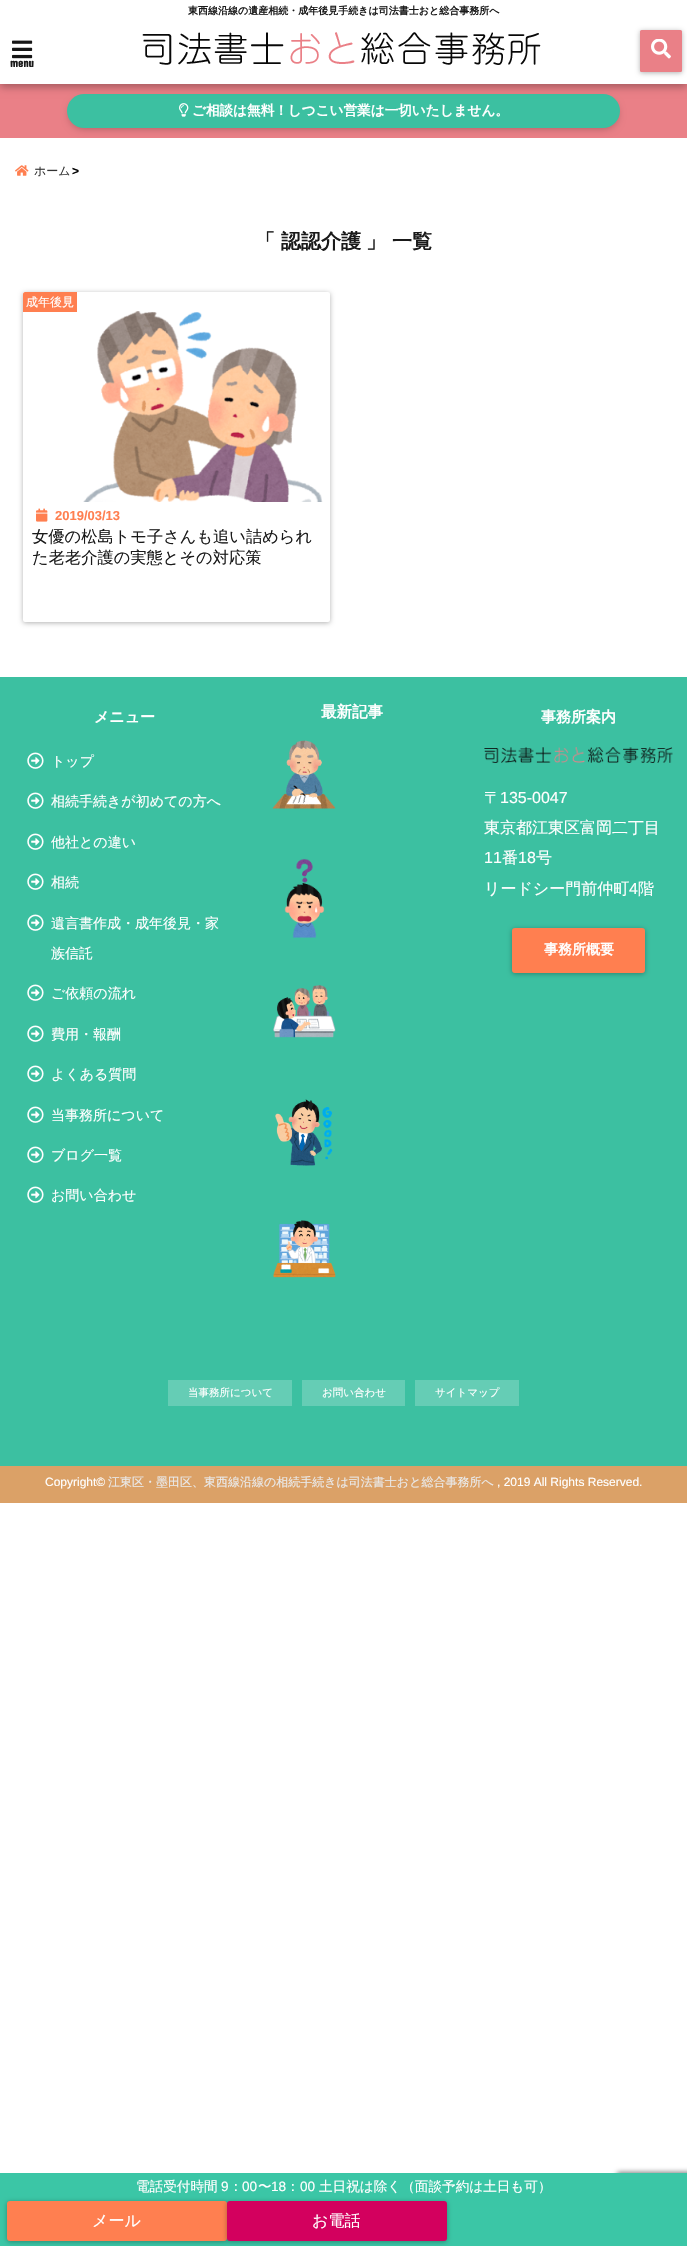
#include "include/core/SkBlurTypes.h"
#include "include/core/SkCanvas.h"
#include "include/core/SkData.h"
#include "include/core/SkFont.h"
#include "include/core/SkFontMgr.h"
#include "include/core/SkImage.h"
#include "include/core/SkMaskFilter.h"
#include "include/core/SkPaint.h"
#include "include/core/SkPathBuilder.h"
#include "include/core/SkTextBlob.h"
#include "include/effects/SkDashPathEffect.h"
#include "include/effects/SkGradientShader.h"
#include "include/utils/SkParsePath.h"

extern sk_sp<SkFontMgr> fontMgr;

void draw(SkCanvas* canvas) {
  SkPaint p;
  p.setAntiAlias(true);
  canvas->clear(SK_ColorWHITE);
  p.setColor(SkColorSetRGB(234, 128, 135));
  canvas->drawRect(SkRect::MakeLTRB(0, 84, 687, 138), p);
  p.setColor(SkColorSetARGB(77, 0, 0, 0));
  p.setMaskFilter(SkMaskFilter::MakeBlur(kNormal_SkBlurStyle, 4));
  canvas->drawRoundRect(SkRect::MakeLTRB(70, 100, 617, 128), 14, 14, p);
  p.setMaskFilter(nullptr);
  p.setColor(SkColorSetRGB(60, 192, 161));
  canvas->drawRoundRect(SkRect::MakeLTRB(67, 94, 620, 128), 17, 17, p);
  p.setColor(SkColorSetARGB(77, 0, 0, 0));
  p.setMaskFilter(SkMaskFilter::MakeBlur(kNormal_SkBlurStyle, 4));
  canvas->drawRect(SkRect::MakeLTRB(0, 3, 687, 87), p);
  p.setMaskFilter(nullptr);
  p.setColor(SK_ColorWHITE);
  canvas->drawRect(SkRect::MakeLTRB(0, 0, 687, 84), p);
  canvas->drawImageRect(SkImages::DeferredFromEncodedData(SkData::MakeFromFileName("images/1.png")), SkRect::MakeLTRB(12, 40, 33, 59), SkSamplingOptions());
  canvas->drawImageRect(SkImages::DeferredFromEncodedData(SkData::MakeFromFileName("images/2.png")), SkRect::MakeLTRB(142, 32, 541, 65), SkSamplingOptions());
  p.setColor(SkColorSetARGB(77, 0, 0, 0));
  p.setMaskFilter(SkMaskFilter::MakeBlur(kNormal_SkBlurStyle, 2.5f));
  canvas->drawRoundRect(SkRect::MakeLTRB(640, 31, 682, 73), 1.5f, 1.5f, p);
  p.setMaskFilter(nullptr);
  p.setColor(SkColorSetRGB(234, 128, 135));
  canvas->drawRoundRect(SkRect::MakeLTRB(640, 30, 682, 72), 1.5f, 1.5f, p);
  canvas->drawImageRect(SkImages::DeferredFromEncodedData(SkData::MakeFromFileName("images/3.png")), SkRect::MakeLTRB(651, 39, 671, 59), SkSamplingOptions());
  canvas->drawImageRect(SkImages::DeferredFromEncodedData(SkData::MakeFromFileName("images/4.png")), SkRect::MakeLTRB(179, 103, 189, 117), SkSamplingOptions());
  canvas->drawImageRect(SkImages::DeferredFromEncodedData(SkData::MakeFromFileName("images/5.png")), SkRect::MakeLTRB(15, 165, 29, 176), SkSamplingOptions());
  p.setColor(SkColorSetARGB(77, 0, 0, 0));
  p.setMaskFilter(SkMaskFilter::MakeBlur(kNormal_SkBlurStyle, 2.5f));
  canvas->drawRoundRect(SkRect::MakeLTRB(23, 293, 330, 623), 2, 2, p);
  p.setMaskFilter(nullptr);
  p.setColor(SK_ColorWHITE);
  canvas->drawRoundRect(SkRect::MakeLTRB(23, 292, 330, 622), 2, 2, p);
  p.setColor(SkColorSetRGB(255, 127, 80));
  canvas->drawPath(SkPathBuilder().moveTo(25, 292).lineTo(77, 292).lineTo(77, 312).lineTo(23, 312).lineTo(23, 294).cubicTo(23, 293, 24, 292, 25, 292).close().detach(), p);
  canvas->drawImageRect(SkImages::DeferredFromEncodedData(SkData::MakeFromFileName("images/6.png")), SkRect::MakeLTRB(83, 311, 323, 502), SkSamplingOptions());
  canvas->drawImageRect(SkImages::DeferredFromEncodedData(SkData::MakeFromFileName("images/7.png")), SkRect::MakeLTRB(36, 508, 48, 522), SkSamplingOptions());
  p.setColor(SkColorSetRGB(60, 192, 161));
  canvas->drawRect(SkRect::MakeLTRB(0, 677, 687, 1466), p);
  canvas->drawImageRect(SkImages::DeferredFromEncodedData(SkData::MakeFromFileName("images/8.png")), SkRect::MakeLTRB(27, 752, 44, 769), SkSamplingOptions());
  canvas->drawImageRect(SkImages::DeferredFromEncodedData(SkData::MakeFromFileName("images/8.png")), SkRect::MakeLTRB(27, 792, 44, 809), SkSamplingOptions());
  canvas->drawImageRect(SkImages::DeferredFromEncodedData(SkData::MakeFromFileName("images/8.png")), SkRect::MakeLTRB(27, 833, 44, 850), SkSamplingOptions());
  canvas->drawImageRect(SkImages::DeferredFromEncodedData(SkData::MakeFromFileName("images/8.png")), SkRect::MakeLTRB(27, 873, 44, 890), SkSamplingOptions());
  canvas->drawImageRect(SkImages::DeferredFromEncodedData(SkData::MakeFromFileName("images/8.png")), SkRect::MakeLTRB(27, 914, 44, 931), SkSamplingOptions());
  canvas->drawImageRect(SkImages::DeferredFromEncodedData(SkData::MakeFromFileName("images/8.png")), SkRect::MakeLTRB(27, 984, 44, 1001), SkSamplingOptions());
  canvas->drawImageRect(SkImages::DeferredFromEncodedData(SkData::MakeFromFileName("images/8.png")), SkRect::MakeLTRB(27, 1025, 44, 1042), SkSamplingOptions());
  canvas->drawImageRect(SkImages::DeferredFromEncodedData(SkData::MakeFromFileName("images/8.png")), SkRect::MakeLTRB(27, 1065, 44, 1082), SkSamplingOptions());
  canvas->drawImageRect(SkImages::DeferredFromEncodedData(SkData::MakeFromFileName("images/8.png")), SkRect::MakeLTRB(27, 1106, 44, 1123), SkSamplingOptions());
  canvas->drawImageRect(SkImages::DeferredFromEncodedData(SkData::MakeFromFileName("images/8.png")), SkRect::MakeLTRB(27, 1146, 44, 1163), SkSamplingOptions());
  canvas->drawImageRect(SkImages::DeferredFromEncodedData(SkData::MakeFromFileName("images/8.png")), SkRect::MakeLTRB(27, 1186, 44, 1203), SkSamplingOptions());
  canvas->drawImageRect(SkImages::DeferredFromEncodedData(SkData::MakeFromFileName("images/9.png")), SkRect::MakeLTRB(272, 740, 336, 809), SkSamplingOptions());
  canvas->drawImageRect(SkImages::DeferredFromEncodedData(SkData::MakeFromFileName("images/10.png")), SkRect::MakeLTRB(284, 858, 325, 938), SkSamplingOptions());
  canvas->drawImageRect(SkImages::DeferredFromEncodedData(SkData::MakeFromFileName("images/11.png")), SkRect::MakeLTRB(273, 985, 336, 1038), SkSamplingOptions());
  canvas->drawImageRect(SkImages::DeferredFromEncodedData(SkData::MakeFromFileName("images/12.png")), SkRect::MakeLTRB(275, 1099, 333, 1166), SkSamplingOptions());
  canvas->drawImageRect(SkImages::DeferredFromEncodedData(SkData::MakeFromFileName("images/13.png")), SkRect::MakeLTRB(273, 1220, 336, 1278), SkSamplingOptions());
  canvas->drawImageRect(SkImages::DeferredFromEncodedData(SkData::MakeFromFileName("images/14.png")), SkRect::MakeLTRB(484, 747, 673, 763), SkSamplingOptions());
  p.setColor(SkColorSetARGB(77, 0, 0, 0));
  p.setMaskFilter(SkMaskFilter::MakeBlur(kNormal_SkBlurStyle, 2.5f));
  canvas->drawRoundRect(SkRect::MakeLTRB(512, 929, 645, 974), 3, 3, p);
  p.setMaskFilter(nullptr);
  p.setColor(SkColorSetRGB(255, 127, 80));
  canvas->drawRoundRect(SkRect::MakeLTRB(513, 929, 644, 972), 2, 2, p);
  p.setStyle(SkPaint::kStroke_Style);
  p.setStrokeWidth(2);
  canvas->drawRoundRect(SkRect::MakeLTRB(513, 929, 644, 972), 2, 2, p);
  p.setStyle(SkPaint::kFill_Style);
  p.setColor(SkColorSetRGB(101, 205, 181));
  canvas->drawRect(SkRect::MakeLTRB(168, 1380, 292, 1406), p);
  canvas->drawRect(SkRect::MakeLTRB(302, 1380, 405, 1406), p);
  canvas->drawRect(SkRect::MakeLTRB(415, 1380, 519, 1406), p);
  p.setColor(SkColorSetRGB(219, 161, 103));
  canvas->drawRect(SkRect::MakeLTRB(0, 1466, 687, 1503), p);
  p.setColor(SkColorSetRGB(128, 128, 128));
  p.setMaskFilter(SkMaskFilter::MakeBlur(kNormal_SkBlurStyle, 2.5f));
  canvas->drawRoundRect(SkRect::MakeLTRB(617, 2172, 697, 2232), 2, 2, p);
  p.setMaskFilter(nullptr);
  p.setColor(SkColorSetRGB(59, 198, 166));
  canvas->drawRect(SkRect::MakeLTRB(0, 2173, 687, 2246), p);
  p.setColor(SkColorSetARGB(77, 0, 0, 0));
  p.setMaskFilter(SkMaskFilter::MakeBlur(kNormal_SkBlurStyle, 2.5f));
  canvas->drawRoundRect(SkRect::MakeLTRB(7, 2202, 227, 2242), 3, 3, p);
  p.setMaskFilter(nullptr);
  p.setColor(SkColorSetRGB(255, 127, 80));
  canvas->drawRoundRect(SkRect::MakeLTRB(7, 2201, 227, 2241), 3, 3, p);
  p.setColor(SkColorSetARGB(77, 0, 0, 0));
  p.setMaskFilter(SkMaskFilter::MakeBlur(kNormal_SkBlurStyle, 2.5f));
  canvas->drawRoundRect(SkRect::MakeLTRB(227, 2202, 447, 2242), 3, 3, p);
  p.setMaskFilter(nullptr);
  p.setColor(SkColorSetRGB(211, 0, 94));
  canvas->drawRoundRect(SkRect::MakeLTRB(227, 2201, 447, 2241), 3, 3, p);
  SkFont font1(fontMgr->matchFamilyStyle("WenQuanYi Zen Hei", SkFontStyle::Bold()), 10);
  font1.setSubpixel(true);
  p.setColor(SkColorSetRGB(26, 26, 26));
  canvas->drawString("東西線沿線の遺産相続・成年後見手続きは司法書士おと総合事務所へ", 188, 14, font1, p);
  SkFont font2(fontMgr->matchFamilyStyle("Denk One", SkFontStyle::Bold()), 10);
  font2.setSubpixel(true);
  canvas->drawString("menu", 10, 67, font2, p);
  SkFont font3(fontMgr->matchFamilyStyle("WenQuanYi Zen Hei", SkFontStyle::Bold()), 13.6f);
  font3.setSubpixel(true);
  p.setColor(SK_ColorWHITE);
  canvas->drawString("ご相談は無料！しつこい営業は一切いたしません。", 192, 115, font3, p);
  SkFont font4(fontMgr->matchFamilyStyle("WenQuanYi Zen Hei", SkFontStyle(500, SkFontStyle::kNormal_Width, SkFontStyle::kUpright_Slant)), 12);
  font4.setSubpixel(true);
  p.setColor(SkColorSetRGB(51, 51, 51));
  canvas->drawString("ホーム", 34, 175, font4, p);
  SkFont font5(fontMgr->matchFamilyStyle("Liberation Sans", SkFontStyle::Bold()), 12);
  font5.setSubpixel(true);
  p.setColor(SkColorSetRGB(1, 1, 1));
  canvas->drawString(">", 72, 175, font5, p);
  SkFont font6(fontMgr->matchFamilyStyle("WenQuanYi Zen Hei", SkFontStyle::Bold()), 20);
  font6.setSubpixel(true);
  p.setColor(SkColorSetRGB(26, 26, 26));
  canvas->drawString("「", 255, 248, font6, p);
  canvas->drawString("認認介護", 281, 248, font6, p);
  canvas->drawString("」 一覧", 366, 248, font6, p);
  p.setColor(SK_ColorWHITE);
  canvas->drawString("成年後見", 26, 306, font4, p);
  SkFont font7(fontMgr->matchFamilyStyle("Liberation Sans", SkFontStyle::Bold()), 13);
  font7.setSubpixel(true);
  p.setColor(SkColorSetRGB(255, 127, 80));
  canvas->drawString("2019/03/13", 55, 520, font7, p);
  SkFont font8(fontMgr->matchFamilyStyle("WenQuanYi Zen Hei", SkFontStyle(500, SkFontStyle::kNormal_Width, SkFontStyle::kUpright_Slant)), 16.25f);
  font8.setSubpixel(true);
  p.setColor(SkColorSetRGB(26, 26, 26));
  canvas->drawString("女優の松島トモ子さんも追い詰められ", 32, 542, font8, p);
  canvas->drawString("た老老介護の実態とその対応策", 32, 563, font8, p);
  SkFont font9(fontMgr->matchFamilyStyle("WenQuanYi Zen Hei", SkFontStyle::Bold()), 15);
  font9.setSubpixel(true);
  p.setColor(SK_ColorWHITE);
  canvas->drawString("メニュー", 94, 722, font9, p);
  SkFont font10(fontMgr->matchFamilyStyle("WenQuanYi Zen Hei", SkFontStyle(500, SkFontStyle::kNormal_Width, SkFontStyle::kUpright_Slant)), 14);
  font10.setSubpixel(true);
  canvas->drawString("トップ", 51, 766, font10, p);
  canvas->drawString("相続手続きが初めての方へ", 51, 806, font10, p);
  canvas->drawString("他社との違い", 51, 847, font10, p);
  canvas->drawString("相続", 51, 887, font10, p);
  canvas->drawString("遺言書作成・成年後見・家", 51, 928, font10, p);
  canvas->drawString("族信託", 51, 958, font10, p);
  canvas->drawString("ご依頼の流れ", 51, 998, font10, p);
  canvas->drawString("費用・報酬", 51, 1039, font10, p);
  canvas->drawString("よくある質問", 51, 1079, font10, p);
  canvas->drawString("当事務所について", 51, 1120, font10, p);
  canvas->drawString("ブログ一覧", 51, 1160, font10, p);
  canvas->drawString("お問い合わせ", 51, 1200, font10, p);
  SkFont font11(fontMgr->matchFamilyStyle("WenQuanYi Zen Hei", SkFontStyle::Bold()), 15.5f);
  font11.setSubpixel(true);
  canvas->drawString("最新記事", 321, 717, font11, p);
  canvas->drawString("事務所案内", 541, 722, font9, p);
  SkFont font12(fontMgr->matchFamilyStyle("WenQuanYi Zen Hei", SkFontStyle(500, SkFontStyle::kNormal_Width, SkFontStyle::kUpright_Slant)), 16);
  font12.setSubpixel(true);
  canvas->drawString("〒", 484, 803, font12, p);
  SkFont font13(fontMgr->matchFamilyStyle("Liberation Sans", SkFontStyle::Normal()), 16);
  font13.setSubpixel(true);
  canvas->drawString("135‐0047", 500, 803, font13, p);
  canvas->drawString("東京都江東区富岡二丁目", 484, 833, font12, p);
  canvas->drawString("11", 484, 863, font13, p);
  canvas->drawString("番", 502, 863, font12, p);
  canvas->drawString("18", 518, 863, font13, p);
  canvas->drawString("号", 536, 863, font12, p);
  canvas->drawString("リードシー門前仲町", 484, 894, font12, p);
  canvas->drawString("4", 629, 894, font13, p);
  canvas->drawString("階", 638, 894, font12, p);
  SkFont font14(fontMgr->matchFamilyStyle("WenQuanYi Zen Hei", SkFontStyle::Bold()), 14);
  font14.setSubpixel(true);
  canvas->drawString("事務所概要", 544, 954, font14, p);
  SkFont font15(fontMgr->matchFamilyStyle("WenQuanYi Zen Hei", SkFontStyle(500, SkFontStyle::kNormal_Width, SkFontStyle::kUpright_Slant)), 10.5f);
  font15.setSubpixel(true);
  canvas->drawString("当事務所について", 188, 1396, font15, p);
  canvas->drawString("お問い合わせ", 322, 1396, font15, p);
  canvas->drawString("サイトマップ", 435, 1396, font15, p);
  SkFont font16(fontMgr->matchFamilyStyle("Liberation Sans", SkFontStyle::Normal()), 12);
  font16.setSubpixel(true);
  canvas->drawString("Copyright©", 45, 1486, font16, p);
  p.setColor(SkColorSetRGB(234, 234, 234));
  canvas->drawString("江東区・墨田区、東西線沿線の相続手続きは司法書士おと総合事務所へ", 108, 1486, font4, p);
  p.setColor(SK_ColorWHITE);
  canvas->drawString(", 2019 All Rights Reserved.", 497, 1486, font16, p);
  SkFont font17(fontMgr->matchFamilyStyle("WenQuanYi Zen Hei", SkFontStyle(500, SkFontStyle::kNormal_Width, SkFontStyle::kUpright_Slant)), 13.6f);
  font17.setSubpixel(true);
  canvas->drawString("電話受付時間", 136, 2191, font17, p);
  SkFont font18(fontMgr->matchFamilyStyle("Liberation Sans", SkFontStyle::Normal()), 13.6f);
  font18.setSubpixel(true);
  canvas->drawString("9", 221, 2191, font18, p);
  canvas->drawString("：", 229, 2191, font17, p);
  canvas->drawString("00", 242, 2191, font18, p);
  canvas->drawString("〜", 258, 2191, font17, p);
  canvas->drawString("18", 271, 2191, font18, p);
  canvas->drawString("：", 286, 2191, font17, p);
  canvas->drawString("00", 300, 2191, font18, p);
  canvas->drawString("土日祝は除く（面談予約は土日も可）", 319, 2191, font17, p);
  canvas->drawString("メール", 92, 2226, font12, p);
  canvas->drawString("お電話", 312, 2226, font12, p);
}
